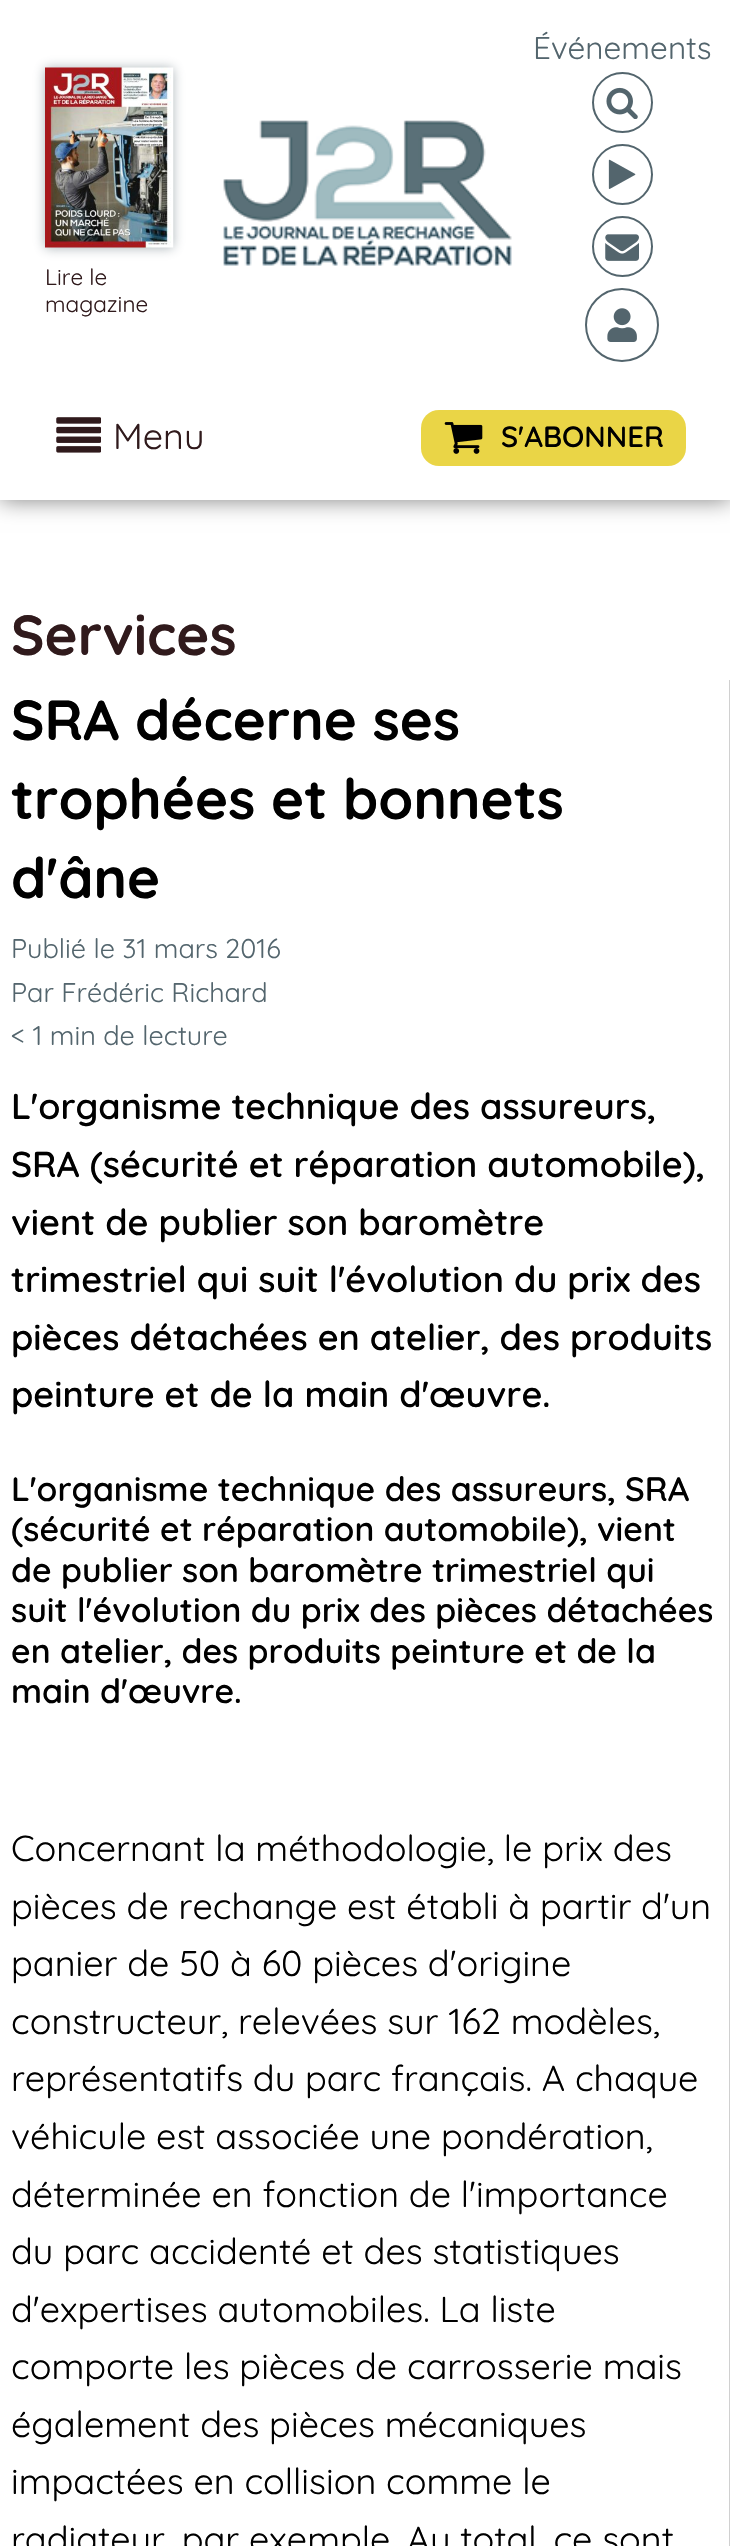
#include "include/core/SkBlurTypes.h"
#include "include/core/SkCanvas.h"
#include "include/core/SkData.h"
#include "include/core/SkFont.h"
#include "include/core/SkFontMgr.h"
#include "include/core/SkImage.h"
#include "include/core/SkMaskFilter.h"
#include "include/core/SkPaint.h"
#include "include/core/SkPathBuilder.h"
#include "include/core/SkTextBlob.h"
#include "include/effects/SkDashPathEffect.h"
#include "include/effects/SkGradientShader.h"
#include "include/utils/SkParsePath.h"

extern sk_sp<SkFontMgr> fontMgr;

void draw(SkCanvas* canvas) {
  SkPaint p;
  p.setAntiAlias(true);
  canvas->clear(SK_ColorWHITE);
  p.setColor(SkColorSetARGB(128, 0, 0, 0));
  p.setMaskFilter(SkMaskFilter::MakeBlur(kNormal_SkBlurStyle, 11));
  canvas->drawRect(SkRect::MakeLTRB(0, 0, 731, 500), p);
  p.setMaskFilter(nullptr);
  p.setColor(SK_ColorWHITE);
  canvas->drawRect(SkRect::MakeLTRB(0, 0, 730, 500), p);
  p.setStyle(SkPaint::kStroke_Style);
  p.setStrokeWidth(2);
  p.setColor(SkColorSetRGB(83, 101, 109));
  canvas->drawCircle(622.5f, 102.5f, 29.5f, p);
  canvas->drawImageRect(SkImages::DeferredFromEncodedData(SkData::MakeFromFileName("images/1.png")), SkRect::MakeLTRB(606, 87, 638, 119), SkSamplingOptions());
  canvas->drawCircle(622.5f, 174.5f, 29.5f, p);
  canvas->drawImageRect(SkImages::DeferredFromEncodedData(SkData::MakeFromFileName("images/2.png")), SkRect::MakeLTRB(608, 159, 636, 189), SkSamplingOptions());
  canvas->drawCircle(622.5f, 246.5f, 29.5f, p);
  canvas->drawImageRect(SkImages::DeferredFromEncodedData(SkData::MakeFromFileName("images/3.png")), SkRect::MakeLTRB(605, 234, 639, 261), SkSamplingOptions());
  canvas->drawCircle(622, 325, 36, p);
  canvas->drawImageRect(SkImages::DeferredFromEncodedData(SkData::MakeFromFileName("images/4.png")), SkRect::MakeLTRB(607, 308, 637, 342), SkSamplingOptions());
  canvas->drawImageRect(SkImages::DeferredFromEncodedData(SkData::MakeFromFileName("images/5.png")), SkRect::MakeLTRB(223, 120, 512, 266), SkSamplingOptions());
  p.setStyle(SkPaint::kFill_Style);
  p.setColor(SkColorSetARGB(128, 83, 101, 109));
  p.setMaskFilter(SkMaskFilter::MakeBlur(kNormal_SkBlurStyle, 5.5f));
  canvas->drawRect(SkRect::MakeLTRB(45, 68, 173, 248), p);
  p.setMaskFilter(nullptr);
  canvas->drawImageRect(SkImages::DeferredFromEncodedData(SkData::MakeFromFileName("images/6.png")), SkRect::MakeLTRB(45, 67, 174, 248), SkSamplingOptions());
  canvas->drawImageRect(SkImages::DeferredFromEncodedData(SkData::MakeFromFileName("images/7.png")), SkRect::MakeLTRB(56, 417, 101, 453), SkSamplingOptions());
  p.setColor(SkColorSetRGB(234, 213, 70));
  canvas->drawRoundRect(SkRect::MakeLTRB(421, 410, 686, 466), 18, 18, p);
  canvas->drawImageRect(SkImages::DeferredFromEncodedData(SkData::MakeFromFileName("images/8.png")), SkRect::MakeLTRB(444, 422, 483, 454), SkSamplingOptions());
  p.setColor(SkColorSetRGB(208, 208, 208));
  canvas->drawRect(SkRect::MakeLTRB(729, 680, 730, 2546), p);
  SkFont font1(fontMgr->matchFamilyStyle("Quicksand", SkFontStyle::Normal()), 31.5f);
  font1.setSubpixel(true);
  p.setColor(SkColorSetRGB(83, 101, 109));
  canvas->drawString("Événements", 533, 59, font1, p);
  SkFont font2(fontMgr->matchFamilyStyle("Quicksand", SkFontStyle::Normal()), 22.5f);
  font2.setSubpixel(true);
  p.setColor(SkColorSetRGB(48, 26, 28));
  canvas->drawString("Lire le", 45, 285, font2, p);
  canvas->drawString("magazine", 45, 312, font2, p);
  SkFont font3(fontMgr->matchFamilyStyle("Quicksand", SkFontStyle::Normal()), 36);
  font3.setSubpixel(true);
  canvas->drawString("Menu", 113, 449, font3, p);
  SkFont font4(fontMgr->matchFamilyStyle("Quicksand", SkFontStyle(600, SkFontStyle::kNormal_Width, SkFontStyle::kUpright_Slant)), 29.25f);
  font4.setSubpixel(true);
  p.setColor(SK_ColorBLACK);
  canvas->drawString("S'ABONNER", 501, 447, font4, p);
  SkFont font5(fontMgr->matchFamilyStyle("Quicksand", SkFontStyle::Bold()), 56.25f);
  font5.setSubpixel(true);
  p.setColor(SkColorSetRGB(48, 26, 28));
  canvas->drawString("Services", 11, 655, font5, p);
  p.setColor(SK_ColorBLACK);
  canvas->drawString("SRA décerne ses", 11, 740, font5, p);
  canvas->drawString("trophées et bonnets", 11, 819, font5, p);
  canvas->drawString("d'âne", 11, 898, font5, p);
  SkFont font6(fontMgr->matchFamilyStyle("Quicksand", SkFontStyle::Normal()), 27);
  font6.setSubpixel(true);
  p.setColor(SkColorSetRGB(83, 101, 109));
  canvas->drawString("Publié le 31 mars 2016", 11, 958, font6, p);
  canvas->drawString("Par Frédéric Richard", 11, 1002, font6, p);
  canvas->drawString("< 1 min de lecture", 11, 1045, font6, p);
  SkFont font7(fontMgr->matchFamilyStyle("Quicksand", SkFontStyle(600, SkFontStyle::kNormal_Width, SkFontStyle::kUpright_Slant)), 36);
  font7.setSubpixel(true);
  p.setColor(SK_ColorBLACK);
  canvas->drawString("L'organisme technique des assureurs,", 11, 1119, font7, p);
  canvas->drawString("SRA (sécurité et réparation automobile),", 11, 1177, font7, p);
  canvas->drawString("vient de publier son baromètre", 11, 1235, font7, p);
  canvas->drawString("trimestriel qui suit l'évolution du prix des", 11, 1292, font7, p);
  canvas->drawString("pièces détachées en atelier, des produits", 11, 1350, font7, p);
  canvas->drawString("peinture et de la main d'œuvre.", 11, 1407, font7, p);
  SkFont font8(fontMgr->matchFamilyStyle("Quicksand", SkFontStyle(600, SkFontStyle::kNormal_Width, SkFontStyle::kUpright_Slant)), 33.75f);
  font8.setSubpixel(true);
  canvas->drawString("L'organisme technique des assureurs, SRA", 11, 1501, font8, p);
  canvas->drawString("(sécurité et réparation automobile), vient", 11, 1541, font8, p);
  canvas->drawString("de publier son baromètre trimestriel qui", 11, 1582, font8, p);
  canvas->drawString("suit l'évolution du prix des pièces détachées", 11, 1622, font8, p);
  canvas->drawString("en atelier, des produits peinture et de la", 11, 1663, font8, p);
  canvas->drawString("main d'œuvre.", 11, 1703, font8, p);
  canvas->drawString("Concernant la méthodologie, le prix des", 11, 1861, font3, p);
  canvas->drawString("pièces de rechange est établi à partir d'un", 11, 1919, font3, p);
  canvas->drawString("panier de 50 à 60 pièces d'origine", 11, 1976, font3, p);
  canvas->drawString("constructeur, relevées sur 162 modèles,", 11, 2034, font3, p);
  canvas->drawString("représentatifs du parc français. A chaque", 11, 2091, font3, p);
  canvas->drawString("véhicule est associée une pondération,", 11, 2149, font3, p);
  canvas->drawString("déterminée en fonction de l'importance", 11, 2207, font3, p);
  canvas->drawString("du parc accidenté et des statistiques", 11, 2264, font3, p);
  canvas->drawString("d'expertises automobiles. La liste", 11, 2322, font3, p);
  canvas->drawString("comporte les pièces de carrosserie mais", 11, 2379, font3, p);
  canvas->drawString("également des pièces mécaniques", 11, 2437, font3, p);
  canvas->drawString("impactées en collision comme le", 11, 2494, font3, p);
  canvas->drawString("radiateur, par exemple. Au total, ce sont", 11, 2552, font3, p);
}
